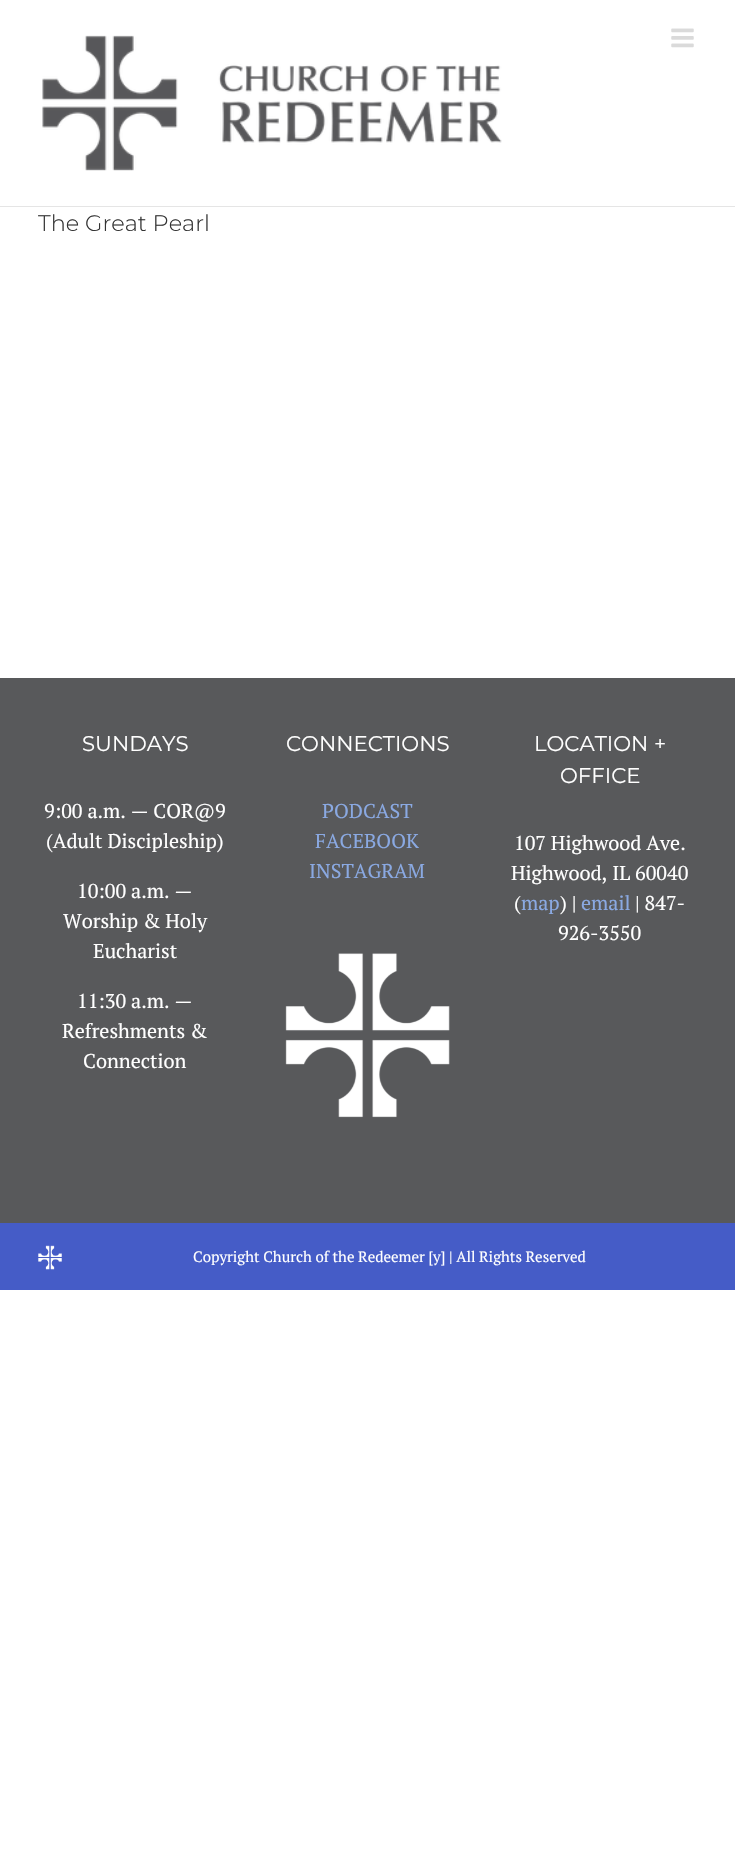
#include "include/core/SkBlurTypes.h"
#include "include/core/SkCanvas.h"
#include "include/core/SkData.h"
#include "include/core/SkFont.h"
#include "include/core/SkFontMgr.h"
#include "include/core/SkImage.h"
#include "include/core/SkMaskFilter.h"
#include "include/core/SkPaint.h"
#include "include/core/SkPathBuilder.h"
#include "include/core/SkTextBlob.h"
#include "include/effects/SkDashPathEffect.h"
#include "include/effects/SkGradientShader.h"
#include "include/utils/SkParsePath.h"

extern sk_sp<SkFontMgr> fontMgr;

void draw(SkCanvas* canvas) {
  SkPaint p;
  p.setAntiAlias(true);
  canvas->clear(SK_ColorWHITE);
  p.setColor(SkColorSetRGB(229, 229, 229));
  canvas->drawRect(SkRect::MakeLTRB(0, 206, 735, 207), p);
  canvas->drawImageRect(SkImages::DeferredFromEncodedData(SkData::MakeFromFileName("images/1.png")), SkRect::MakeLTRB(42, 35, 502, 171), SkSamplingOptions());
  canvas->drawImageRect(SkImages::DeferredFromEncodedData(SkData::MakeFromFileName("images/2.png")), SkRect::MakeLTRB(671, 28, 694, 48), SkSamplingOptions());
  p.setColor(SkColorSetRGB(88, 89, 91));
  canvas->drawRect(SkRect::MakeLTRB(0, 678, 735, 1223), p);
  canvas->drawImageRect(SkImages::DeferredFromEncodedData(SkData::MakeFromFileName("images/3.png")), SkRect::MakeLTRB(285, 953, 450, 1118), SkSamplingOptions());
  p.setColor(SkColorSetRGB(69, 92, 199));
  canvas->drawRect(SkRect::MakeLTRB(0, 1223, 735, 1290), p);
  canvas->drawImageRect(SkImages::DeferredFromEncodedData(SkData::MakeFromFileName("images/4.png")), SkRect::MakeLTRB(38, 1245, 62, 1270), SkSamplingOptions());
  SkFont font1(fontMgr->matchFamilyStyle("Montserrat", SkFontStyle(300, SkFontStyle::kNormal_Width, SkFontStyle::kUpright_Slant)), 22.5f);
  font1.setSubpixel(true);
  p.setColor(SkColorSetRGB(51, 51, 51));
  canvas->drawString("The Great Pearl", 38, 231, font1, p);
  SkFont font2(fontMgr->matchFamilyStyle("Montserrat", SkFontStyle::Normal()), 21.25f);
  font2.setSubpixel(true);
  p.setColor(SK_ColorWHITE);
  canvas->drawString("SUNDAYS", 82, 751, font2, p);
  SkFont font3(fontMgr->matchFamilyStyle("PT Serif", SkFontStyle::Normal()), 20);
  font3.setSubpixel(true);
  canvas->drawString("9:00 a.m. — COR@9", 44, 818, font3, p);
  canvas->drawString("(Adult Discipleship)", 46, 848, font3, p);
  canvas->drawString("10:00 a.m. —", 77, 898, font3, p);
  canvas->drawString("Worship & Holy", 63, 928, font3, p);
  canvas->drawString("Eucharist", 93, 958, font3, p);
  canvas->drawString("11:30 a.m. —", 77, 1008, font3, p);
  canvas->drawString("Refreshments &", 62, 1038, font3, p);
  canvas->drawString("Connection", 83, 1068, font3, p);
  canvas->drawString("CONNECTIONS", 286, 751, font2, p);
  p.setColor(SkColorSetRGB(138, 169, 226));
  canvas->drawString("PODCAST", 322, 818, font3, p);
  canvas->drawString("FACEBOOK", 315, 848, font3, p);
  canvas->drawString("INSTAGRAM", 309, 878, font3, p);
  p.setColor(SK_ColorWHITE);
  canvas->drawString("LOCATION +", 534, 751, font2, p);
  canvas->drawString("OFFICE", 560, 783, font2, p);
  canvas->drawString("107 Highwood Ave.", 514, 850, font3, p);
  canvas->drawString("Highwood, IL 60040", 511, 880, font3, p);
  canvas->drawString("(", 514, 910, font3, p);
  p.setColor(SkColorSetRGB(138, 169, 226));
  canvas->drawString("map", 521, 910, font3, p);
  p.setColor(SK_ColorWHITE);
  canvas->drawString(") |", 560, 910, font3, p);
  p.setColor(SkColorSetRGB(138, 169, 226));
  canvas->drawString("email", 581, 910, font3, p);
  p.setColor(SK_ColorWHITE);
  canvas->drawString("| 847-", 635, 910, font3, p);
  canvas->drawString("926-3550", 558, 940, font3, p);
  SkFont font4(fontMgr->matchFamilyStyle("PT Serif", SkFontStyle::Normal()), 15);
  font4.setSubpixel(true);
  canvas->drawString("Copyright Church of the Redeemer [y] | All Rights Reserved", 193, 1262, font4, p);
}
